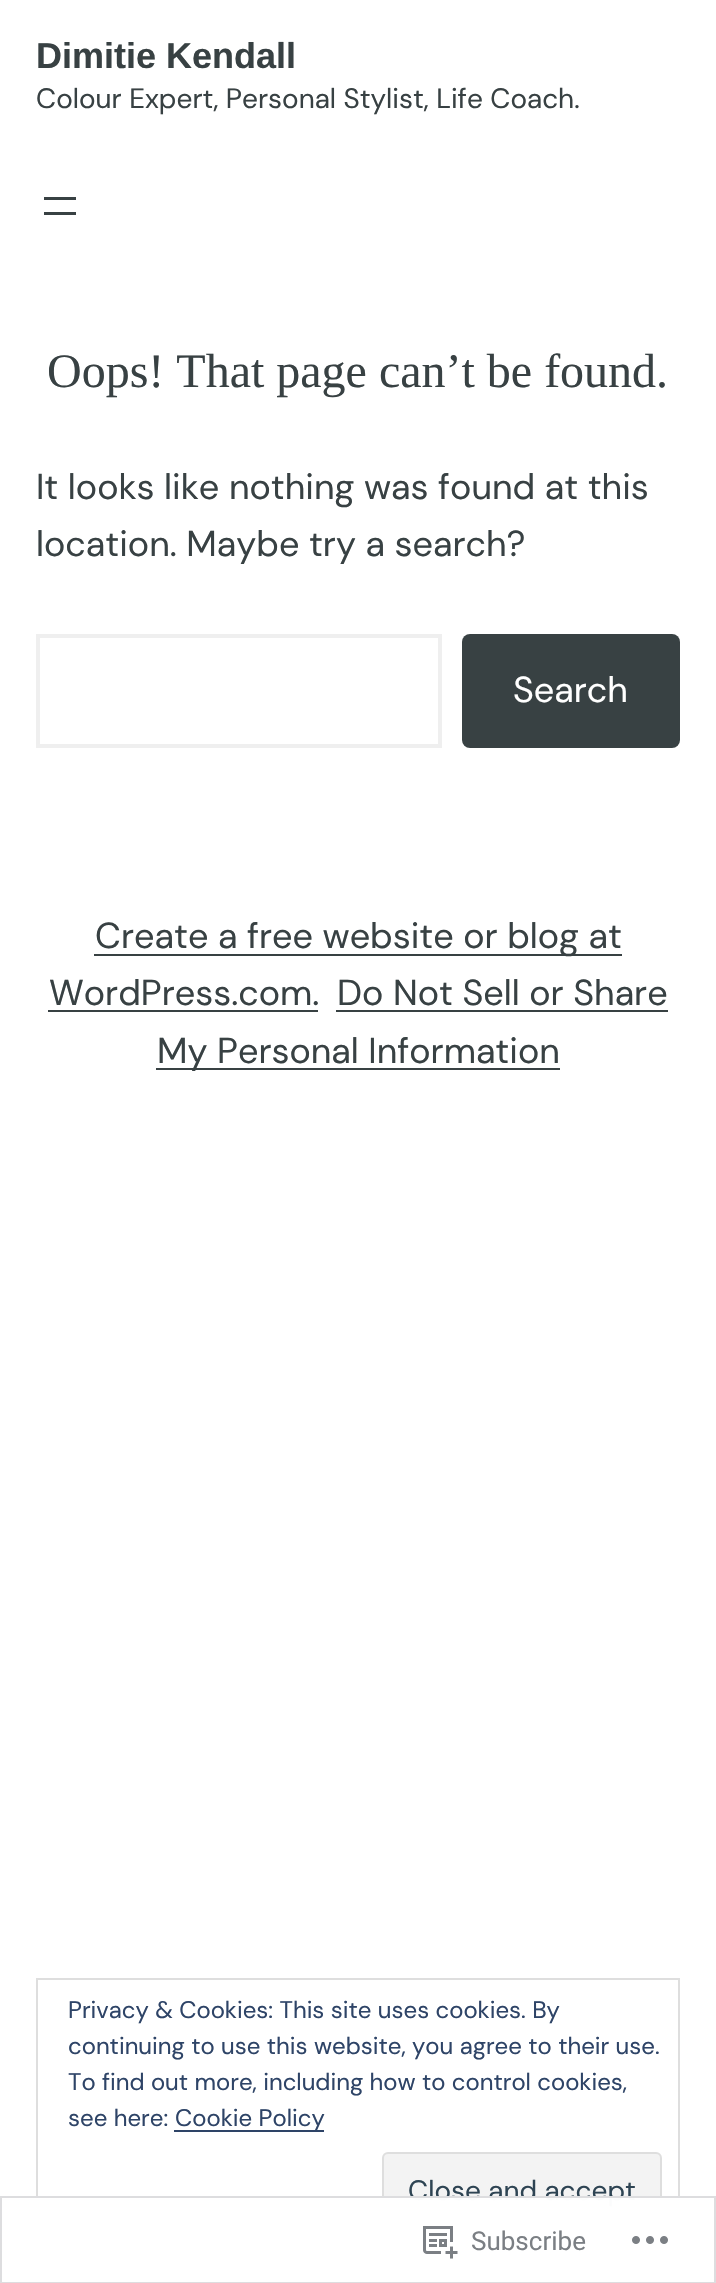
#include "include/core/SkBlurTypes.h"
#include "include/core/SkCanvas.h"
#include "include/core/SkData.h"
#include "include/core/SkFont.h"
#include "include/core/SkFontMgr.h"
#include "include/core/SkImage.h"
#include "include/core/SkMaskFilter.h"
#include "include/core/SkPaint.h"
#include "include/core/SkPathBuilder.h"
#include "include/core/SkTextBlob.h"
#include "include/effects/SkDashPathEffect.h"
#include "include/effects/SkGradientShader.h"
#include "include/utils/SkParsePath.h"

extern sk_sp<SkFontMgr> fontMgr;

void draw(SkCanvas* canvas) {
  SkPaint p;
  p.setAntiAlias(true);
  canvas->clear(SK_ColorWHITE);
  p.setColor(SkColorSetRGB(56, 65, 67));
  canvas->drawRect(SkRect::MakeLTRB(44, 197, 76, 200), p);
  canvas->drawRect(SkRect::MakeLTRB(44, 212, 76, 215), p);
  p.setStyle(SkPaint::kStroke_Style);
  p.setStrokeWidth(4);
  p.setColor(SkColorSetRGB(239, 239, 239));
  canvas->drawRect(SkRect::MakeLTRB(38, 636, 440, 746), p);
  p.setStyle(SkPaint::kFill_Style);
  p.setColor(SkColorSetRGB(56, 65, 67));
  canvas->drawRoundRect(SkRect::MakeLTRB(462, 634, 680, 748), 8, 8, p);
  canvas->drawRect(SkRect::MakeLTRB(94, 954, 622, 956), p);
  canvas->drawRect(SkRect::MakeLTRB(48, 1010, 318, 1012), p);
  canvas->drawRect(SkRect::MakeLTRB(336, 1010, 668, 1012), p);
  canvas->drawRect(SkRect::MakeLTRB(156, 1068, 560, 1070), p);
  p.setStyle(SkPaint::kStroke_Style);
  p.setStrokeWidth(2);
  p.setColor(SkColorSetRGB(222, 222, 222));
  canvas->drawRect(SkRect::MakeLTRB(37, 1979, 679, 2247), p);
  p.setStyle(SkPaint::kFill_Style);
  p.setColor(SkColorSetRGB(46, 68, 103));
  canvas->drawRect(SkRect::MakeLTRB(174, 2130, 324, 2132), p);
  p.setColor(SkColorSetRGB(243, 243, 243));
  canvas->drawRoundRect(SkRect::MakeLTRB(383, 2153, 661, 2229), 5, 5, p);
  p.setStyle(SkPaint::kStroke_Style);
  p.setColor(SkColorSetRGB(222, 222, 222));
  canvas->drawRoundRect(SkRect::MakeLTRB(383, 2153, 661, 2229), 5, 5, p);
  SkFont font1(fontMgr->matchFamilyStyle("Liberation Sans", SkFontStyle::Bold()), 36);
  font1.setSubpixel(true);
  p.setStyle(SkPaint::kFill_Style);
  p.setColor(SkColorSetRGB(56, 65, 67));
  canvas->drawString("Dimitie Kendall", 36, 68, font1, p);
  SkFont font2(fontMgr->matchFamilyStyle("DM Sans", SkFontStyle::Normal()), 28);
  font2.setSubpixel(true);
  canvas->drawString("Colour Expert, Personal Stylist, Life Coach.", 36, 108, font2, p);
  SkFont font3(fontMgr->matchFamilyStyle("Liberation Serif", SkFontStyle::Normal()), 48);
  font3.setSubpixel(true);
  canvas->drawString("Oops! That page can’t be found.", 47, 387, font3, p);
  SkFont font4(fontMgr->matchFamilyStyle("DM Sans", SkFontStyle::Normal()), 36);
  font4.setSubpixel(true);
  canvas->drawString("It looks like nothing was found at this", 36, 499, font4, p);
  canvas->drawString("location. Maybe try a search?", 36, 556, font4, p);
  p.setColor(SK_ColorWHITE);
  canvas->drawString("Search", 513, 702, font4, p);
  p.setColor(SkColorSetRGB(56, 65, 67));
  canvas->drawString("Create a free website or blog at", 95, 948, font4, p);
  canvas->drawString("WordPress.com.", 49, 1005, font4, p);
  canvas->drawString("Do Not Sell or Share", 337, 1005, font4, p);
  canvas->drawString("My Personal Information", 157, 1063, font4, p);
  SkFont font5(fontMgr->matchFamilyStyle("DM Sans", SkFontStyle::Normal()), 24);
  font5.setSubpixel(true);
  p.setColor(SkColorSetRGB(46, 68, 103));
  canvas->drawString("Privacy & Cookies: This site uses cookies. By", 68, 2018, font5, p);
  canvas->drawString("continuing to use this website, you agree to their use.", 68, 2054, font5, p);
  canvas->drawString("To find out more, including how to control cookies,", 68, 2090, font5, p);
  canvas->drawString("see here:", 68, 2126, font5, p);
  canvas->drawString("Cookie Policy", 175, 2126, font5, p);
  p.setColor(SkColorSetRGB(46, 68, 83));
  canvas->drawString("Close and accept", 408, 2200, font2, p);
  p.setColor(SkColorSetARGB(250, 255, 255, 255));
  canvas->drawRect(SkRect::MakeLTRB(36, 2196, 680, 2248), p);
  p.setStyle(SkPaint::kStroke_Style);
  p.setColor(SkColorSetARGB(250, 220, 220, 222));
  canvas->drawRect(SkRect::MakeLTRB(1, 2197, 715, 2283), p);
  canvas->drawImageRect(SkImages::DeferredFromEncodedData(SkData::MakeFromFileName("images/1.png")), SkRect::MakeLTRB(423, 2226, 458, 2259), SkSamplingOptions());
  SkFont font6(fontMgr->matchFamilyStyle("Roboto", SkFontStyle::Normal()), 26);
  font6.setSubpixel(true);
  p.setStyle(SkPaint::kFill_Style);
  p.setColor(SkColorSetRGB(123, 127, 132));
  canvas->drawString("Subscribe", 471, 2250, font6, p);
  canvas->drawImageRect(SkImages::DeferredFromEncodedData(SkData::MakeFromFileName("images/2.png")), SkRect::MakeLTRB(632, 2236, 668, 2244), SkSamplingOptions());
}
